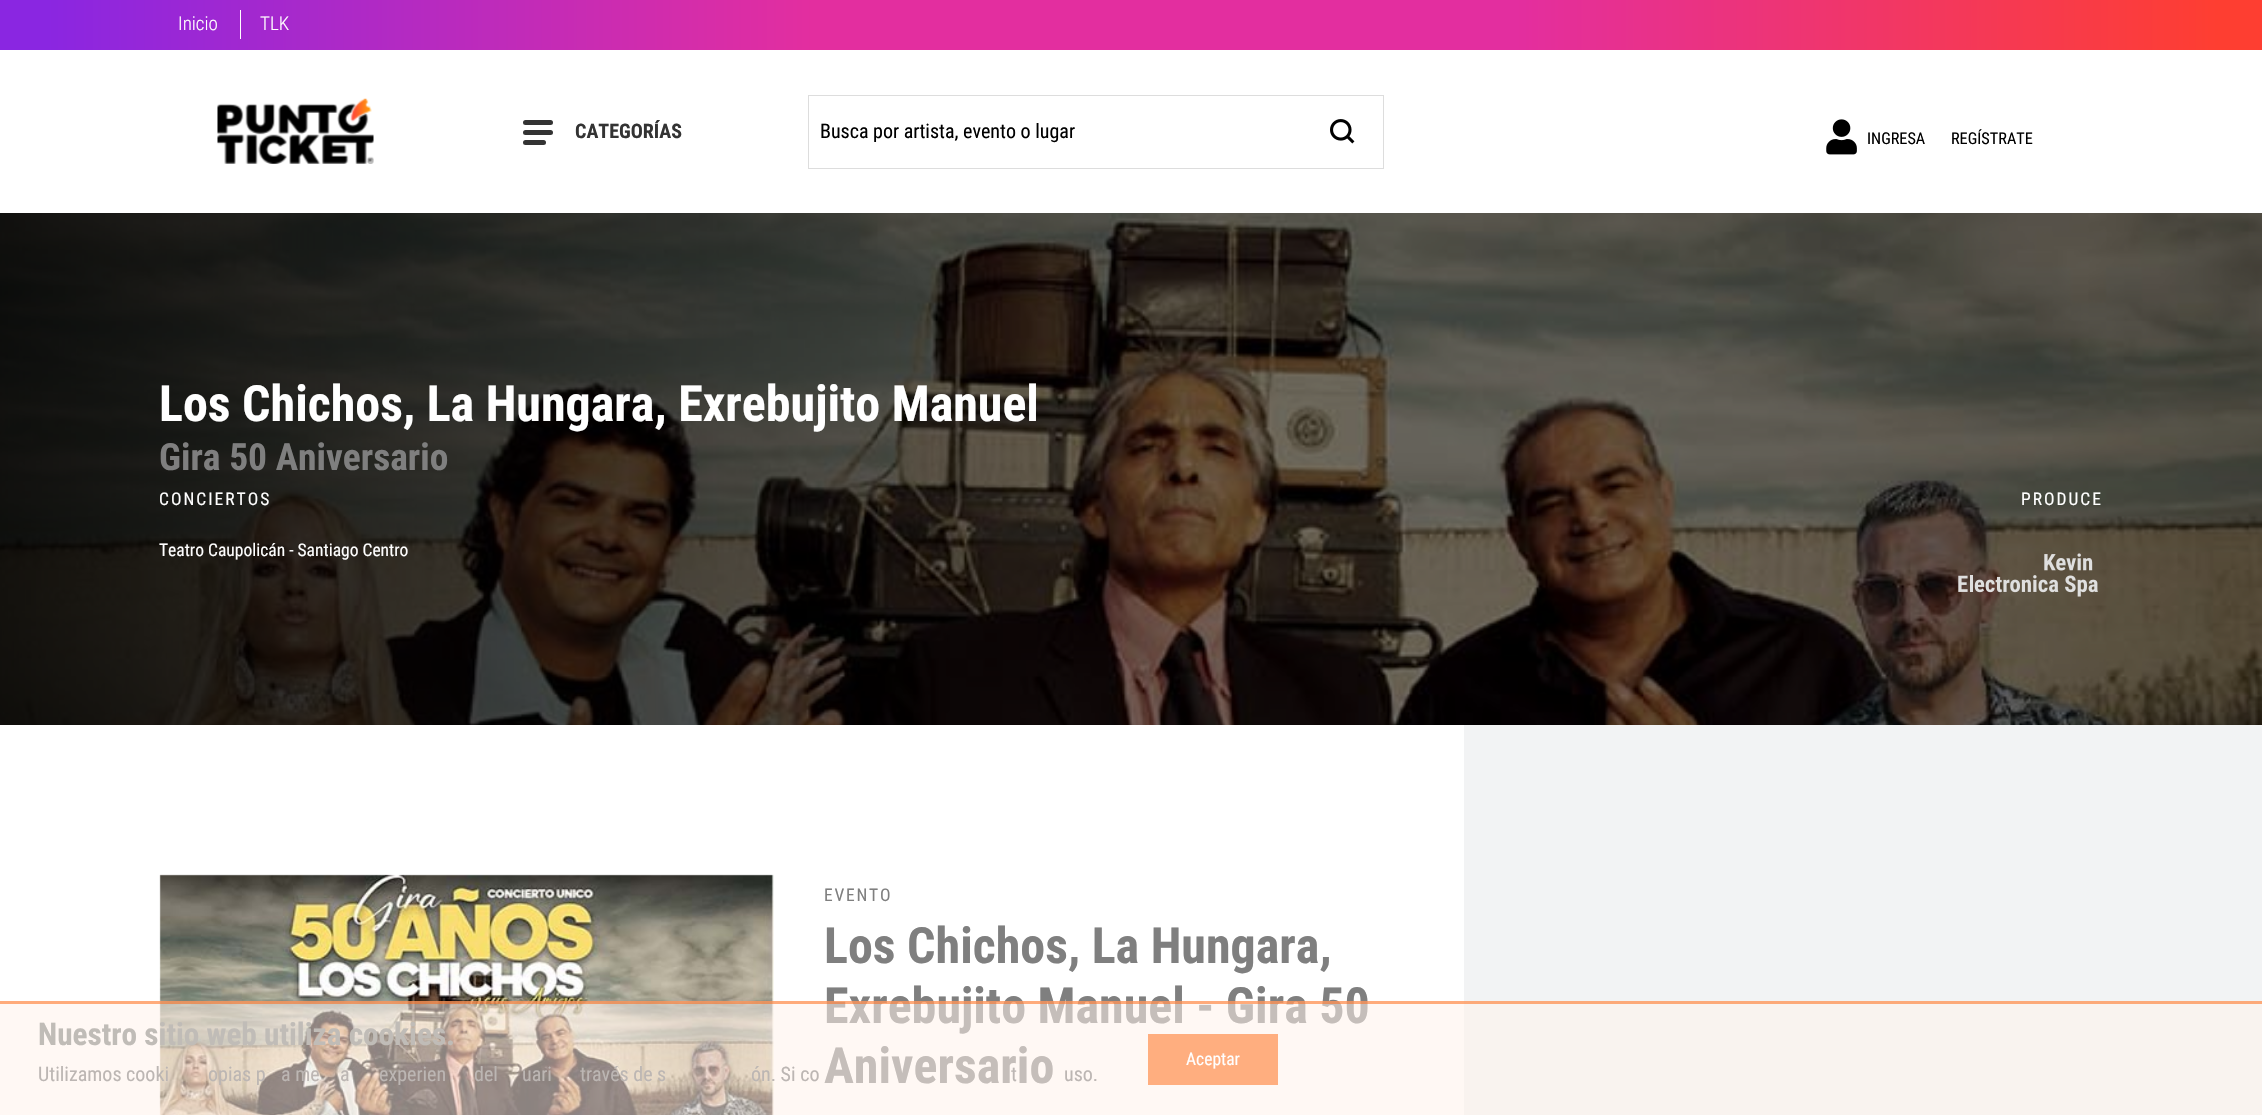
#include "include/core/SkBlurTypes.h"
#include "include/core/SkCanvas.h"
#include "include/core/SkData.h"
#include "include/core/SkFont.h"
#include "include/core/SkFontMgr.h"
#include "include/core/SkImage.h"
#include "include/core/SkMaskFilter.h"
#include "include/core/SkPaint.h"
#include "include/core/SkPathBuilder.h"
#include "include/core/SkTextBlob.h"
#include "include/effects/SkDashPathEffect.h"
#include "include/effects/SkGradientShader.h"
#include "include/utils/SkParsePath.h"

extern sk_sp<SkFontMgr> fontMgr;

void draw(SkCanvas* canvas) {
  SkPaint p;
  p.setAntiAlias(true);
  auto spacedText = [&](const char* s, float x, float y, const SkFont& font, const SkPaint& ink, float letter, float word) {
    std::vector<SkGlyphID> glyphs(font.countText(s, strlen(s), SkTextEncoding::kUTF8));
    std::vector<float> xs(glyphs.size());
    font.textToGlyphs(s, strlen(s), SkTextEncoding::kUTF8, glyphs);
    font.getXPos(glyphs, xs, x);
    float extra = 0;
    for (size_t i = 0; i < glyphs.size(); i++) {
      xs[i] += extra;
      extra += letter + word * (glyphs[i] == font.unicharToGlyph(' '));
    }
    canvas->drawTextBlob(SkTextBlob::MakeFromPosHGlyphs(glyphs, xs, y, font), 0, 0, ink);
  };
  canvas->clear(SK_ColorWHITE);
  {
    const SkColor colors[] = {SkColorSetRGB(138, 38, 225), SkColorSetRGB(227, 46, 159), SkColorSetRGB(227, 46, 159), SkColorSetRGB(254, 62, 49)};
    const float stops[] = {0.02f, 0.36f, 0.67f, 0.98f};
    const SkPoint ends[] = {{0, 25}, {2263, 25}};
    p.setShader(SkGradientShader::MakeLinear(ends, colors, stops, 4, SkTileMode::kClamp));
    p.setAlpha(255);
  }
  canvas->drawRect(SkRect::MakeLTRB(0, 0, 2262, 50), p);
  p.setShader(nullptr);
  p.setColor(SK_ColorWHITE);
  canvas->drawRect(SkRect::MakeLTRB(240, 10, 241, 39), p);
  canvas->drawImageRect(SkImages::DeferredFromEncodedData(SkData::MakeFromFileName("images/1.png")), SkRect::MakeLTRB(217, 98, 374, 164), SkSamplingOptions());
  p.setColor(SkColorSetRGB(51, 51, 51));
  canvas->drawRoundRect(SkRect::MakeLTRB(523, 130, 553, 135), 2.5f, 2.5f, p);
  canvas->drawRoundRect(SkRect::MakeLTRB(523, 120, 553, 125), 2.5f, 2.5f, p);
  canvas->drawRoundRect(SkRect::MakeLTRB(523, 140, 546, 145), 2.5f, 2.5f, p);
  p.setStyle(SkPaint::kStroke_Style);
  p.setStrokeWidth(1);
  p.setColor(SkColorSetRGB(221, 221, 221));
  canvas->drawRect(SkRect::MakeLTRB(808.5f, 95.5f, 1383.5f, 168.5f), p);
  canvas->drawImageRect(SkImages::DeferredFromEncodedData(SkData::MakeFromFileName("images/2.png")), SkRect::MakeLTRB(1330, 119, 1355, 144), SkSamplingOptions());
  canvas->drawImageRect(SkImages::DeferredFromEncodedData(SkData::MakeFromFileName("images/3.png")), SkRect::MakeLTRB(1826, 119, 1857, 155), SkSamplingOptions());
  canvas->drawImageRect(SkImages::DeferredFromEncodedData(SkData::MakeFromFileName("images/4.png")), SkRect::MakeLTRB(0, 213, 2262, 725), SkSamplingOptions());
  canvas->drawImageRect(SkImages::DeferredFromEncodedData(SkData::MakeFromFileName("images/5.png")), SkRect::MakeLTRB(1958, 553, 2098, 597), SkSamplingOptions());
  canvas->drawImageRect(SkImages::DeferredFromEncodedData(SkData::MakeFromFileName("images/6.png")), SkRect::MakeLTRB(159, 874, 774, 1115), SkSamplingOptions());
  p.setStyle(SkPaint::kFill_Style);
  p.setColor(SkColorSetRGB(242, 243, 244));
  canvas->drawRect(SkRect::MakeLTRB(1464, 725, 2262, 1115), p);
  SkFont font1(fontMgr->matchFamilyStyle("Roboto Condensed", SkFontStyle(300, SkFontStyle::kNormal_Width, SkFontStyle::kUpright_Slant)), 19);
  font1.setSubpixel(true);
  p.setColor(SK_ColorWHITE);
  canvas->drawString("Inicio", 178, 30, font1, p);
  canvas->drawString("TLK", 260, 30, font1, p);
  SkFont font2(fontMgr->matchFamilyStyle("Roboto Condensed", SkFontStyle::Bold()), 20);
  font2.setSubpixel(true);
  p.setColor(SkColorSetRGB(51, 51, 51));
  canvas->drawString("CATEGORÍAS", 575, 138, font2, p);
  SkFont font3(fontMgr->matchFamilyStyle("Roboto Condensed", SkFontStyle::Normal()), 20);
  font3.setSubpixel(true);
  p.setColor(SK_ColorBLACK);
  canvas->drawString("Busca por artista, evento o lugar", 820, 138, font3, p);
  SkFont font4(fontMgr->matchFamilyStyle("Roboto Condensed", SkFontStyle::Normal()), 16.25f);
  font4.setSubpixel(true);
  canvas->drawString("INGRESA", 1867, 144, font4, p);
  canvas->drawString("REGÍSTRATE", 1951, 144, font4, p);
  SkFont font5(fontMgr->matchFamilyStyle("Roboto Condensed", SkFontStyle::Bold()), 50);
  font5.setSubpixel(true);
  p.setColor(SK_ColorWHITE);
  canvas->drawString("Los Chichos, La Hungara, Exrebujito Manuel", 159, 421, font5, p);
  SkFont font6(fontMgr->matchFamilyStyle("Roboto Condensed", SkFontStyle::Bold()), 37.5f);
  font6.setSubpixel(true);
  p.setColor(SkColorSetRGB(127, 127, 127));
  canvas->drawString("Gira 50 Aniversario", 159, 470, font6, p);
  SkFont font7(fontMgr->matchFamilyStyle("Roboto Condensed", SkFontStyle::Normal()), 17.5f);
  font7.setSubpixel(true);
  p.setColor(SK_ColorWHITE);
  spacedText("CONCIERTOS", 159, 505, font7, p, 2, 0);
  canvas->drawString("Teatro Caupolicán - Santiago Centro", 159, 556, font7, p);
  spacedText("PRODUCE", 2021, 505, font7, p, 2, 0);
  p.setColor(SkColorSetRGB(127, 127, 127));
  spacedText("EVENTO", 824, 901, font7, p, 1.75f, 0);
  canvas->drawString("Los Chichos, La Hungara,", 824, 963, font5, p);
  canvas->drawString("Exrebujito Manuel - Gira 50", 824, 1023, font5, p);
  canvas->drawString("Aniversario", 824, 1083, font5, p);
  p.setColor(SkColorSetARGB(138, 255, 242, 235));
  canvas->drawRect(SkRect::MakeLTRB(0, 1001, 2262, 1115), p);
  p.setColor(SkColorSetARGB(138, 255, 106, 20));
  canvas->drawRect(SkRect::MakeLTRB(0, 1001, 2262, 1004), p);
  SkFont font8(fontMgr->matchFamilyStyle("Roboto Condensed", SkFontStyle::Bold()), 31.25f);
  font8.setSubpixel(true);
  p.setColor(SkColorSetRGB(192, 188, 183));
  canvas->drawString("Nuestro sitio web utiliza cookies.", 38, 1045, font8, p);
  p.setColor(SkColorSetRGB(188, 182, 179));
  canvas->drawString("Utilizamos cooki", 38, 1081, font3, p);
  canvas->drawString("opias p", 208, 1081, font3, p);
  canvas->drawString("a me", 281, 1081, font3, p);
  canvas->drawString("a", 340, 1081, font3, p);
  canvas->drawString("experien", 379, 1081, font3, p);
  canvas->drawString("del", 474, 1081, font3, p);
  canvas->drawString("uari", 522, 1081, font3, p);
  canvas->drawString("través de s", 580, 1081, font3, p);
  canvas->drawString("ón. Si co", 751, 1081, font3, p);
  canvas->drawString("t", 1011, 1081, font3, p);
  canvas->drawString("uso.", 1064, 1081, font3, p);
  p.setColor(SkColorSetRGB(255, 174, 127));
  canvas->drawRect(SkRect::MakeLTRB(1148, 1034, 1278, 1085), p);
  p.setColor(SK_ColorWHITE);
  canvas->drawString("Aceptar", 1186, 1065, font7, p);
}
